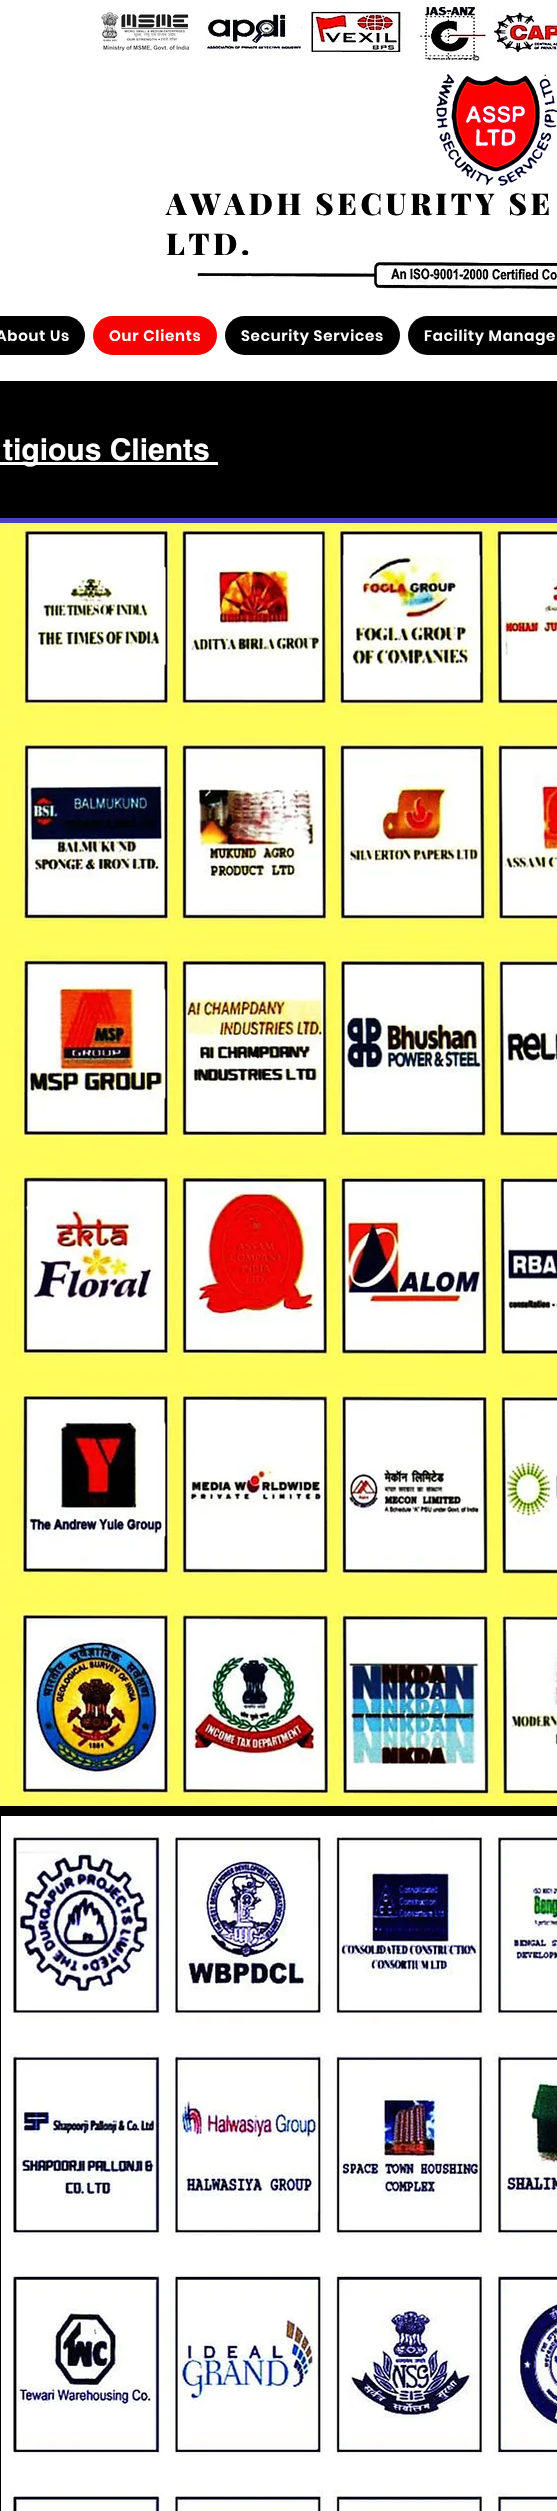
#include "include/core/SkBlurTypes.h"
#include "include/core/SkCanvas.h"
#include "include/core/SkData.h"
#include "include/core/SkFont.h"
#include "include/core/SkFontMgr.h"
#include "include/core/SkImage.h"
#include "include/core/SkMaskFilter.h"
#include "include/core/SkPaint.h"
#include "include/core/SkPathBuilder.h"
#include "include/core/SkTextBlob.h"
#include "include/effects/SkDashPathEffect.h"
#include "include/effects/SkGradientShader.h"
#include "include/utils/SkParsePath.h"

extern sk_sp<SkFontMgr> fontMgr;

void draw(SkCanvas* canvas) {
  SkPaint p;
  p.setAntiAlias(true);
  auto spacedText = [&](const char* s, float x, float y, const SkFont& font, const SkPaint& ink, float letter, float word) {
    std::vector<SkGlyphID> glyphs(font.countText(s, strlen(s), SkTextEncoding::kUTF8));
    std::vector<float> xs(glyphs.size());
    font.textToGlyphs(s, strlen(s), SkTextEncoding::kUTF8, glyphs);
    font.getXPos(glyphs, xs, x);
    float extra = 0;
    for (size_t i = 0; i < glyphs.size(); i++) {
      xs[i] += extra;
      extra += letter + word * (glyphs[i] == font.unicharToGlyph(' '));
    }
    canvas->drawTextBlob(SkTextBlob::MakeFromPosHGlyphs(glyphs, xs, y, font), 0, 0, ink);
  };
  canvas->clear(SK_ColorWHITE);
  canvas->drawImageRect(SkImages::DeferredFromEncodedData(SkData::MakeFromFileName("images/1.png")), SkRect::MakeLTRB(101, 12, 189, 51), SkSamplingOptions());
  canvas->drawImageRect(SkImages::DeferredFromEncodedData(SkData::MakeFromFileName("images/2.png")), SkRect::MakeLTRB(207, 6, 557, 62), SkSamplingOptions());
  canvas->drawImageRect(SkImages::DeferredFromEncodedData(SkData::MakeFromFileName("images/3.png")), SkRect::MakeLTRB(436, 74, 557, 186), SkSamplingOptions());
  p.setColor(SK_ColorBLACK);
  canvas->drawRoundRect(SkRect::MakeLTRB(-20, 316, 85, 355), 19.5f, 19.5f, p);
  p.setColor(SkColorSetRGB(247, 2, 2));
  canvas->drawRoundRect(SkRect::MakeLTRB(93, 316, 217, 355), 19.5f, 19.5f, p);
  p.setColor(SK_ColorBLACK);
  canvas->drawRoundRect(SkRect::MakeLTRB(225, 316, 400, 355), 19.5f, 19.5f, p);
  canvas->drawRoundRect(SkRect::MakeLTRB(408, 316, 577, 355), 19.5f, 19.5f, p);
  canvas->drawRect(SkRect::MakeLTRB(0, 381, 557, 518), p);
  p.setColor(SK_ColorWHITE);
  canvas->drawRect(SkRect::MakeLTRB(0, 462, 218, 465), p);
  p.setColor(SkColorSetRGB(71, 67, 197));
  canvas->drawRect(SkRect::MakeLTRB(0, 518, 557, 523), p);
  canvas->drawImageRect(SkImages::DeferredFromEncodedData(SkData::MakeFromFileName("images/5.png")), SkRect::MakeLTRB(0, 523, 557, 1806), SkSamplingOptions());
  p.setColor(SK_ColorBLACK);
  canvas->drawRect(SkRect::MakeLTRB(0, 1806, 557, 2511), p);
  canvas->drawImageRect(SkImages::DeferredFromEncodedData(SkData::MakeFromFileName("images/6.png")), SkRect::MakeLTRB(1, 1816, 557, 2511), SkSamplingOptions());
  SkFont font1(fontMgr->matchFamilyStyle("Playfair Display", SkFontStyle(900, SkFontStyle::kNormal_Width, SkFontStyle::kUpright_Slant)), 30);
  font1.setSubpixel(true);
  spacedText("AWADH SECURITY SE", 166, 215, font1, p, 3.6f, 0);
  spacedText("LTD.", 166, 255, font1, p, 3.6f, 0);
  canvas->drawImageRect(SkImages::DeferredFromEncodedData(SkData::MakeFromFileName("images/4.png")), SkRect::MakeLTRB(197, 255, 557, 289), SkSamplingOptions());
  SkFont font2(fontMgr->matchFamilyStyle("Poppins", SkFontStyle(600, SkFontStyle::kNormal_Width, SkFontStyle::kUpright_Slant)), 15);
  font2.setSubpixel(true);
  p.setColor(SK_ColorWHITE);
  spacedText("About Us", -4, 341, font2, p, 0.75f, 0);
  spacedText("Our Clients", 109, 341, font2, p, 0.75f, 0);
  spacedText("Security Services", 241, 341, font2, p, 0.75f, 0);
  spacedText("Facility Manage", 424, 341, font2, p, 0.75f, 0);
  SkFont font3(fontMgr->matchFamilyStyle("helvetica", SkFontStyle::Bold()), 30);
  font3.setSubpixel(true);
  canvas->drawString("tigious Clients", 3, 460, font3, p);
}
